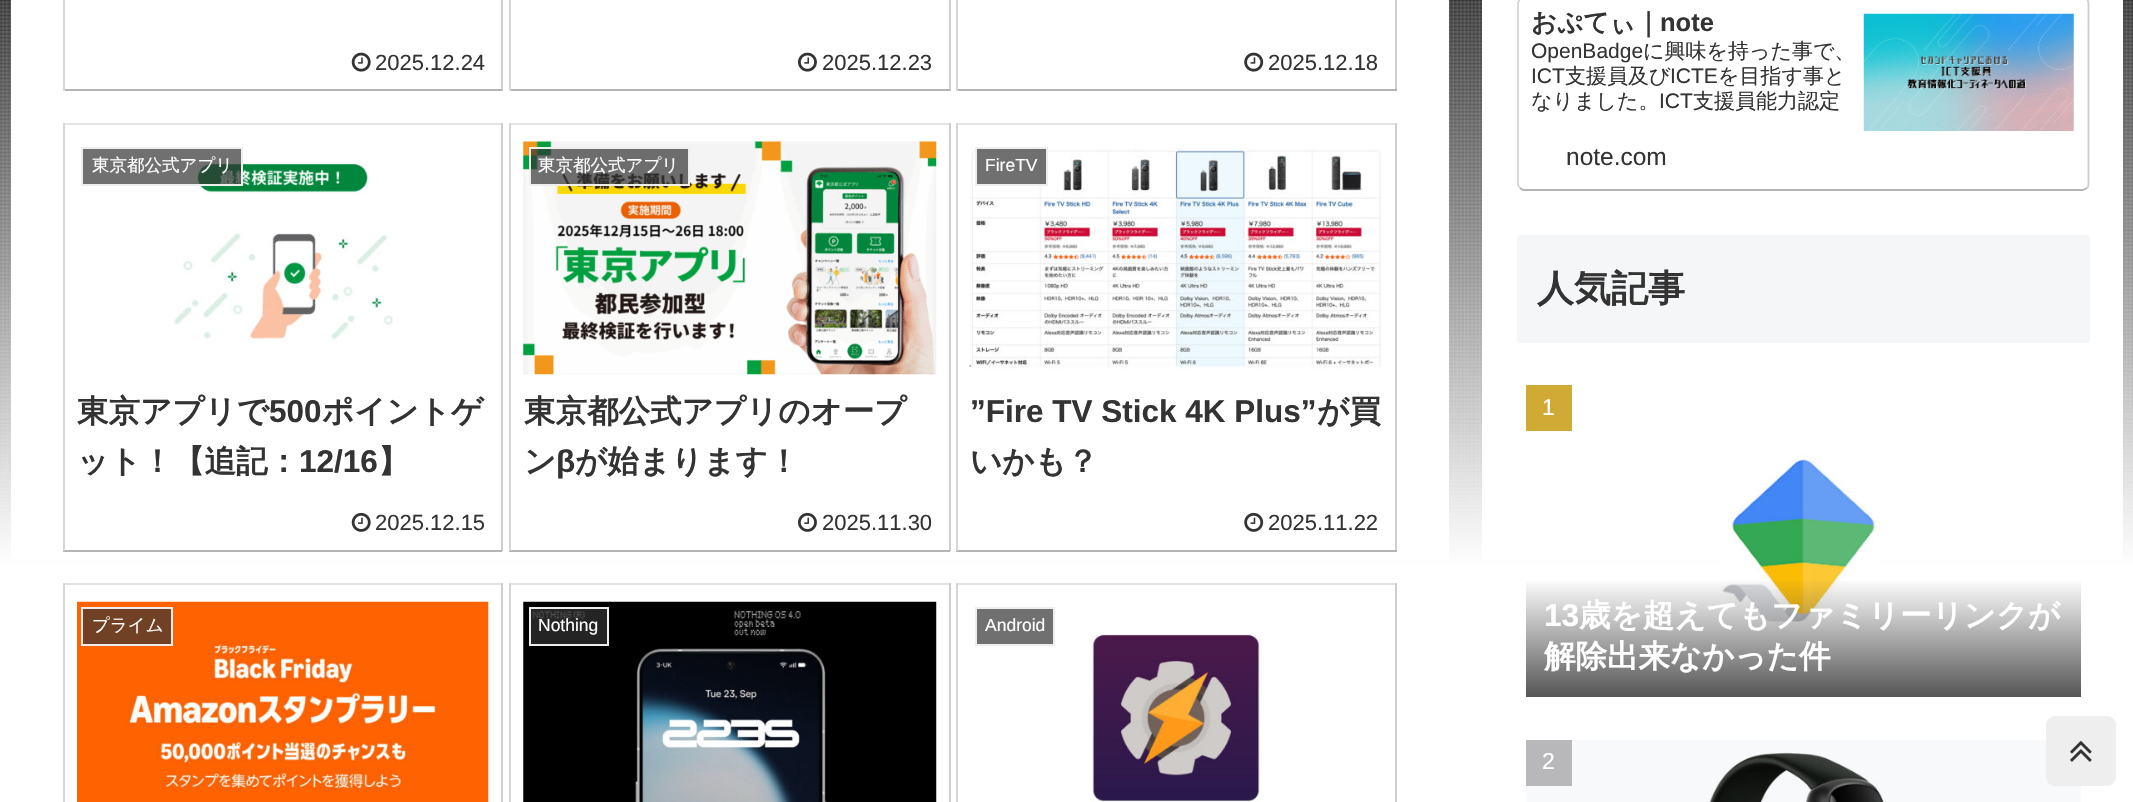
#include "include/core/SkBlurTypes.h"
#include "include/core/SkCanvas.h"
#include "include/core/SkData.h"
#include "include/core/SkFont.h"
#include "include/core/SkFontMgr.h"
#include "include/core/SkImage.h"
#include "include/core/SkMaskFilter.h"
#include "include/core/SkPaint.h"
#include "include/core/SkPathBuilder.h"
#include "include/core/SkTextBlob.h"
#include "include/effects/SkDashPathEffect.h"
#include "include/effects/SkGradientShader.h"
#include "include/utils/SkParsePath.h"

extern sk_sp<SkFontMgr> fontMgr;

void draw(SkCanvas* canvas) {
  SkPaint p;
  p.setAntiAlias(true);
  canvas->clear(SK_ColorWHITE);
  canvas->drawImageRect(SkImages::DeferredFromEncodedData(SkData::MakeFromFileName("images/1.png")), SkRect::MakeLTRB(0, 0, 2133, 802), SkSamplingOptions());
  p.setColor(SK_ColorWHITE);
  canvas->drawRect(SkRect::MakeLTRB(11, 0, 1449, 560), p);
  p.setColor(SkColorSetRGB(206, 206, 206));
  canvas->drawRect(SkRect::MakeLTRB(501, 0, 503, 91), p);
  p.setColor(SkColorSetRGB(180, 180, 180));
  canvas->drawRect(SkRect::MakeLTRB(63, 89, 502, 91), p);
  p.setColor(SkColorSetRGB(214, 214, 214));
  canvas->drawRect(SkRect::MakeLTRB(63, 0, 65, 91), p);
  canvas->drawImageRect(SkImages::DeferredFromEncodedData(SkData::MakeFromFileName("images/2.png")), SkRect::MakeLTRB(351, 52, 371, 72), SkSamplingOptions());
  p.setColor(SkColorSetRGB(206, 206, 206));
  canvas->drawRect(SkRect::MakeLTRB(949, 0, 951, 91), p);
  p.setColor(SkColorSetRGB(180, 180, 180));
  canvas->drawRect(SkRect::MakeLTRB(509, 89, 950, 91), p);
  p.setColor(SkColorSetRGB(214, 214, 214));
  canvas->drawRect(SkRect::MakeLTRB(509, 0, 511, 91), p);
  canvas->drawImageRect(SkImages::DeferredFromEncodedData(SkData::MakeFromFileName("images/3.png")), SkRect::MakeLTRB(798, 52, 817, 72), SkSamplingOptions());
  p.setColor(SkColorSetRGB(206, 206, 206));
  canvas->drawRect(SkRect::MakeLTRB(1395, 0, 1397, 91), p);
  p.setColor(SkColorSetRGB(180, 180, 180));
  canvas->drawRect(SkRect::MakeLTRB(956, 89, 1397, 91), p);
  p.setColor(SkColorSetRGB(214, 214, 214));
  canvas->drawRect(SkRect::MakeLTRB(956, 0, 958, 91), p);
  canvas->drawImageRect(SkImages::DeferredFromEncodedData(SkData::MakeFromFileName("images/4.png")), SkRect::MakeLTRB(1244, 52, 1264, 72), SkSamplingOptions());
  p.setColor(SkColorSetRGB(227, 227, 227));
  canvas->drawRect(SkRect::MakeLTRB(63, 123, 502, 125), p);
  p.setColor(SkColorSetRGB(206, 206, 206));
  canvas->drawRect(SkRect::MakeLTRB(501, 123, 503, 551), p);
  p.setColor(SkColorSetRGB(180, 180, 180));
  canvas->drawRect(SkRect::MakeLTRB(63, 550, 502, 552), p);
  p.setColor(SkColorSetRGB(214, 214, 214));
  canvas->drawRect(SkRect::MakeLTRB(63, 123, 65, 551), p);
  canvas->drawImageRect(SkImages::DeferredFromEncodedData(SkData::MakeFromFileName("images/5.png")), SkRect::MakeLTRB(174, 162, 394, 342), SkSamplingOptions());
  p.setColor(SkColorSetARGB(179, 51, 51, 51));
  canvas->drawRect(SkRect::MakeLTRB(82, 148, 242, 185), p);
  p.setStyle(SkPaint::kStroke_Style);
  p.setStrokeWidth(2);
  p.setColor(SkColorSetRGB(238, 238, 238));
  canvas->drawRect(SkRect::MakeLTRB(82, 148, 242, 185), p);
  canvas->drawImageRect(SkImages::DeferredFromEncodedData(SkData::MakeFromFileName("images/6.png")), SkRect::MakeLTRB(351, 512, 371, 532), SkSamplingOptions());
  p.setStyle(SkPaint::kFill_Style);
  p.setColor(SkColorSetRGB(227, 227, 227));
  canvas->drawRect(SkRect::MakeLTRB(509, 123, 950, 125), p);
  p.setColor(SkColorSetRGB(206, 206, 206));
  canvas->drawRect(SkRect::MakeLTRB(949, 123, 951, 551), p);
  p.setColor(SkColorSetRGB(180, 180, 180));
  canvas->drawRect(SkRect::MakeLTRB(509, 550, 950, 552), p);
  p.setColor(SkColorSetRGB(214, 214, 214));
  canvas->drawRect(SkRect::MakeLTRB(509, 123, 511, 551), p);
  canvas->drawImageRect(SkImages::DeferredFromEncodedData(SkData::MakeFromFileName("images/7.png")), SkRect::MakeLTRB(523, 141, 937, 375), SkSamplingOptions());
  p.setColor(SkColorSetARGB(179, 51, 51, 51));
  canvas->drawRect(SkRect::MakeLTRB(530, 148, 689, 185), p);
  p.setStyle(SkPaint::kStroke_Style);
  p.setColor(SkColorSetRGB(238, 238, 238));
  canvas->drawRect(SkRect::MakeLTRB(530, 148, 689, 185), p);
  canvas->drawImageRect(SkImages::DeferredFromEncodedData(SkData::MakeFromFileName("images/8.png")), SkRect::MakeLTRB(798, 512, 817, 532), SkSamplingOptions());
  p.setStyle(SkPaint::kFill_Style);
  p.setColor(SkColorSetRGB(227, 227, 227));
  canvas->drawRect(SkRect::MakeLTRB(956, 123, 1397, 125), p);
  p.setColor(SkColorSetRGB(206, 206, 206));
  canvas->drawRect(SkRect::MakeLTRB(1395, 123, 1397, 551), p);
  p.setColor(SkColorSetRGB(180, 180, 180));
  canvas->drawRect(SkRect::MakeLTRB(956, 550, 1397, 552), p);
  p.setColor(SkColorSetRGB(214, 214, 214));
  canvas->drawRect(SkRect::MakeLTRB(956, 123, 958, 551), p);
  canvas->drawImageRect(SkImages::DeferredFromEncodedData(SkData::MakeFromFileName("images/9.png")), SkRect::MakeLTRB(969, 148, 1381, 369), SkSamplingOptions());
  p.setColor(SkColorSetARGB(179, 51, 51, 51));
  canvas->drawRect(SkRect::MakeLTRB(976, 148, 1047, 185), p);
  p.setStyle(SkPaint::kStroke_Style);
  p.setColor(SkColorSetRGB(238, 238, 238));
  canvas->drawRect(SkRect::MakeLTRB(976, 148, 1047, 185), p);
  canvas->drawImageRect(SkImages::DeferredFromEncodedData(SkData::MakeFromFileName("images/10.png")), SkRect::MakeLTRB(1244, 512, 1264, 532), SkSamplingOptions());
  p.setStyle(SkPaint::kFill_Style);
  p.setColor(SkColorSetRGB(227, 227, 227));
  canvas->drawRect(SkRect::MakeLTRB(63, 583, 502, 585), p);
  p.setColor(SkColorSetRGB(206, 206, 206));
  canvas->drawRect(SkRect::MakeLTRB(501, 583, 503, 802), p);
  p.setColor(SkColorSetRGB(214, 214, 214));
  canvas->drawRect(SkRect::MakeLTRB(63, 583, 65, 802), p);
  canvas->drawImageRect(SkImages::DeferredFromEncodedData(SkData::MakeFromFileName("images/11.png")), SkRect::MakeLTRB(77, 601, 489, 802), SkSamplingOptions());
  p.setColor(SkColorSetRGB(112, 65, 36));
  canvas->drawRect(SkRect::MakeLTRB(82, 608, 172, 645), p);
  p.setStyle(SkPaint::kStroke_Style);
  p.setColor(SkColorSetRGB(238, 238, 238));
  canvas->drawRect(SkRect::MakeLTRB(82, 608, 172, 645), p);
  p.setStyle(SkPaint::kFill_Style);
  p.setColor(SkColorSetRGB(227, 227, 227));
  canvas->drawRect(SkRect::MakeLTRB(509, 583, 950, 585), p);
  p.setColor(SkColorSetRGB(206, 206, 206));
  canvas->drawRect(SkRect::MakeLTRB(949, 583, 951, 802), p);
  p.setColor(SkColorSetRGB(214, 214, 214));
  canvas->drawRect(SkRect::MakeLTRB(509, 583, 511, 802), p);
  canvas->drawImageRect(SkImages::DeferredFromEncodedData(SkData::MakeFromFileName("images/12.png")), SkRect::MakeLTRB(523, 601, 937, 802), SkSamplingOptions());
  p.setColor(SkColorSetARGB(179, 51, 51, 51));
  canvas->drawRect(SkRect::MakeLTRB(530, 608, 608, 645), p);
  p.setStyle(SkPaint::kStroke_Style);
  p.setColor(SkColorSetRGB(238, 238, 238));
  canvas->drawRect(SkRect::MakeLTRB(530, 608, 608, 645), p);
  p.setStyle(SkPaint::kFill_Style);
  p.setColor(SkColorSetRGB(227, 227, 227));
  canvas->drawRect(SkRect::MakeLTRB(956, 583, 1397, 585), p);
  p.setColor(SkColorSetRGB(206, 206, 206));
  canvas->drawRect(SkRect::MakeLTRB(1395, 583, 1397, 802), p);
  p.setColor(SkColorSetRGB(214, 214, 214));
  canvas->drawRect(SkRect::MakeLTRB(956, 583, 958, 802), p);
  p.setColor(SkColorSetRGB(112, 112, 112));
  canvas->drawRect(SkRect::MakeLTRB(976, 608, 1054, 645), p);
  p.setStyle(SkPaint::kStroke_Style);
  p.setColor(SkColorSetRGB(238, 238, 238));
  canvas->drawRect(SkRect::MakeLTRB(976, 608, 1054, 645), p);
  canvas->drawImageRect(SkImages::DeferredFromEncodedData(SkData::MakeFromFileName("images/13.png")), SkRect::MakeLTRB(1090, 634, 1262, 802), SkSamplingOptions());
  p.setStyle(SkPaint::kFill_Style);
  p.setColor(SK_ColorWHITE);
  canvas->drawRect(SkRect::MakeLTRB(1482, 0, 2123, 560), p);
  p.setStyle(SkPaint::kStroke_Style);
  p.setStrokeWidth(1.8f);
  p.setColor(SkColorSetRGB(206, 206, 206));
  canvas->drawPath(SkPathBuilder().moveTo(2087, -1).cubicTo(2088, 0.5f, 2088.5f, 2, 2088.5f, 3.5f).lineTo(2088.5f, 184).cubicTo(2088.5f, 185.5f, 2088, 187, 2087, 188).detach(), p);
  p.setColor(SkColorSetRGB(180, 180, 180));
  canvas->drawPath(SkPathBuilder().moveTo(2087, 188).cubicTo(2085.5f, 189, 2084, 190, 2082.5f, 190).lineTo(1524, 190).cubicTo(1522.5f, 190, 1521, 189, 1520, 188).detach(), p);
  p.setColor(SkColorSetRGB(214, 214, 214));
  canvas->drawPath(SkPathBuilder().moveTo(1520, 188).cubicTo(1519, 187, 1518, 185.5f, 1518, 184).lineTo(1518, 3.5f).cubicTo(1518, 2, 1519, 0.5f, 1520, -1).detach(), p);
  canvas->drawImageRect(SkImages::DeferredFromEncodedData(SkData::MakeFromFileName("images/14.png")), SkRect::MakeLTRB(1863, 13, 2074, 131), SkSamplingOptions());
  p.setStyle(SkPaint::kFill_Style);
  p.setColor(SkColorSetRGB(245, 246, 247));
  canvas->drawRoundRect(SkRect::MakeLTRB(1517, 235, 2090, 343), 4, 4, p);
  p.setColor(SkColorSetRGB(209, 170, 53));
  canvas->drawRect(SkRect::MakeLTRB(1526, 385, 1572, 431), p);
  canvas->drawImageRect(SkImages::DeferredFromEncodedData(SkData::MakeFromFileName("images/15.png")), SkRect::MakeLTRB(1721, 454, 1880, 622), SkSamplingOptions());
  {
    const SkColor colors[] = {SkColorSetARGB(0, 85, 85, 85), SkColorSetRGB(85, 85, 85)};
    const float stops[] = {0, 1};
    const SkPoint ends[] = {{1803, 578}, {1803, 697}};
    p.setShader(SkGradientShader::MakeLinear(ends, colors, stops, 2, SkTileMode::kClamp));
    p.setAlpha(255);
  }
  canvas->drawRect(SkRect::MakeLTRB(1526, 581, 2081, 697), p);
  canvas->drawImageRect(SkImages::DeferredFromEncodedData(SkData::MakeFromFileName("images/16.png")), SkRect::MakeLTRB(1526, 740, 2081, 802), SkSamplingOptions());
  p.setShader(nullptr);
  p.setColor(SkColorSetRGB(184, 184, 186));
  canvas->drawRect(SkRect::MakeLTRB(1526, 740, 1572, 786), p);
  p.setColor(SkColorSetRGB(238, 238, 238));
  canvas->drawRoundRect(SkRect::MakeLTRB(2046, 716, 2116, 786), 9, 9, p);
  canvas->drawImageRect(SkImages::DeferredFromEncodedData(SkData::MakeFromFileName("images/17.png")), SkRect::MakeLTRB(2070, 741, 2092, 762), SkSamplingOptions());
  SkFont font1(fontMgr->matchFamilyStyle("Liberation Sans", SkFontStyle::Normal()), 22);
  font1.setSubpixel(true);
  p.setColor(SkColorSetRGB(51, 51, 51));
  canvas->drawString("2025.12.24", 375, 70, font1, p);
  canvas->drawString("2025.12.23", 822, 70, font1, p);
  canvas->drawString("2025.12.18", 1268, 70, font1, p);
  SkFont font2(fontMgr->matchFamilyStyle("WenQuanYi Zen Hei", SkFontStyle(500, SkFontStyle::kNormal_Width, SkFontStyle::kUpright_Slant)), 17.5f);
  font2.setSubpixel(true);
  p.setColor(SK_ColorWHITE);
  canvas->drawString("東京都公式アプリ", 92, 171, font2, p);
  SkFont font3(fontMgr->matchFamilyStyle("WenQuanYi Zen Hei", SkFontStyle::Bold()), 31.5f);
  font3.setSubpixel(true);
  p.setColor(SkColorSetRGB(51, 51, 51));
  canvas->drawString("東京アプリで", 77, 422, font3, p);
  SkFont font4(fontMgr->matchFamilyStyle("Liberation Sans", SkFontStyle::Bold()), 31.5f);
  font4.setSubpixel(true);
  canvas->drawString("500", 269, 422, font4, p);
  canvas->drawString("ポイントゲ", 322, 422, font3, p);
  canvas->drawString("ット！【追記：", 77, 472, font3, p);
  canvas->drawString("12/16", 299, 472, font4, p);
  canvas->drawString("】", 378, 472, font3, p);
  canvas->drawString("2025.12.15", 375, 530, font1, p);
  p.setColor(SK_ColorWHITE);
  canvas->drawString("東京都公式アプリ", 538, 171, font2, p);
  p.setColor(SkColorSetRGB(51, 51, 51));
  canvas->drawString("東京都公式アプリのオープ", 524, 422, font3, p);
  canvas->drawString("ン", 524, 472, font3, p);
  canvas->drawString("β", 556, 472, font4, p);
  canvas->drawString("が始まります！", 575, 472, font3, p);
  canvas->drawString("2025.11.30", 822, 530, font1, p);
  SkFont font5(fontMgr->matchFamilyStyle("Liberation Sans", SkFontStyle::Normal()), 17.5f);
  font5.setSubpixel(true);
  p.setColor(SK_ColorWHITE);
  canvas->drawString("FireTV", 985, 171, font5, p);
  p.setColor(SkColorSetRGB(51, 51, 51));
  canvas->drawString("”Fire TV Stick 4K Plus”", 970, 422, font4, p);
  canvas->drawString("が買", 1317, 422, font3, p);
  canvas->drawString("いかも？", 970, 472, font3, p);
  canvas->drawString("2025.11.22", 1268, 530, font1, p);
  p.setColor(SK_ColorWHITE);
  canvas->drawString("プライム", 92, 631, font2, p);
  canvas->drawString("Nothing", 538, 631, font5, p);
  canvas->drawString("Android", 985, 631, font5, p);
  SkFont font6(fontMgr->matchFamilyStyle("WenQuanYi Zen Hei", SkFontStyle::Bold()), 25.5f);
  font6.setSubpixel(true);
  p.setColor(SkColorSetRGB(51, 51, 51));
  canvas->drawString("おぷてぃ｜", 1531, 31, font6, p);
  SkFont font7(fontMgr->matchFamilyStyle("Liberation Sans", SkFontStyle::Bold()), 25.5f);
  font7.setSubpixel(true);
  canvas->drawString("note", 1660, 31, font7, p);
  SkFont font8(fontMgr->matchFamilyStyle("Liberation Sans", SkFontStyle::Normal()), 21);
  font8.setSubpixel(true);
  canvas->drawString("OpenBadge", 1531, 58, font8, p);
  SkFont font9(fontMgr->matchFamilyStyle("WenQuanYi Zen Hei", SkFontStyle(500, SkFontStyle::kNormal_Width, SkFontStyle::kUpright_Slant)), 21);
  font9.setSubpixel(true);
  canvas->drawString("に興味を持った事で、", 1643, 58, font9, p);
  canvas->drawString("ICT", 1531, 83, font8, p);
  canvas->drawString("支援員及び", 1565, 83, font9, p);
  canvas->drawString("ICTE", 1670, 83, font8, p);
  canvas->drawString("を目指す事と", 1718, 83, font9, p);
  canvas->drawString("なりました。", 1531, 108, font9, p);
  canvas->drawString("ICT", 1659, 108, font8, p);
  canvas->drawString("支援員能力認定", 1693, 108, font9, p);
  SkFont font10(fontMgr->matchFamilyStyle("Liberation Sans", SkFontStyle::Normal()), 24.5f);
  font10.setSubpixel(true);
  canvas->drawString("note.com", 1566, 165, font10, p);
  SkFont font11(fontMgr->matchFamilyStyle("WenQuanYi Zen Hei", SkFontStyle::Bold()), 37);
  font11.setSubpixel(true);
  canvas->drawString("人気記事", 1537, 301, font11, p);
  SkFont font12(fontMgr->matchFamilyStyle("Liberation Sans", SkFontStyle::Normal()), 23);
  font12.setSubpixel(true);
  p.setColor(SK_ColorWHITE);
  canvas->drawString("1", 1542, 415, font12, p);
  canvas->drawString("13", 1544, 626, font4, p);
  canvas->drawString("歳を超えてもファミリーリンクが", 1579, 626, font3, p);
  canvas->drawString("解除出来なかった件", 1544, 667, font3, p);
  canvas->drawString("2", 1542, 769, font12, p);
}
